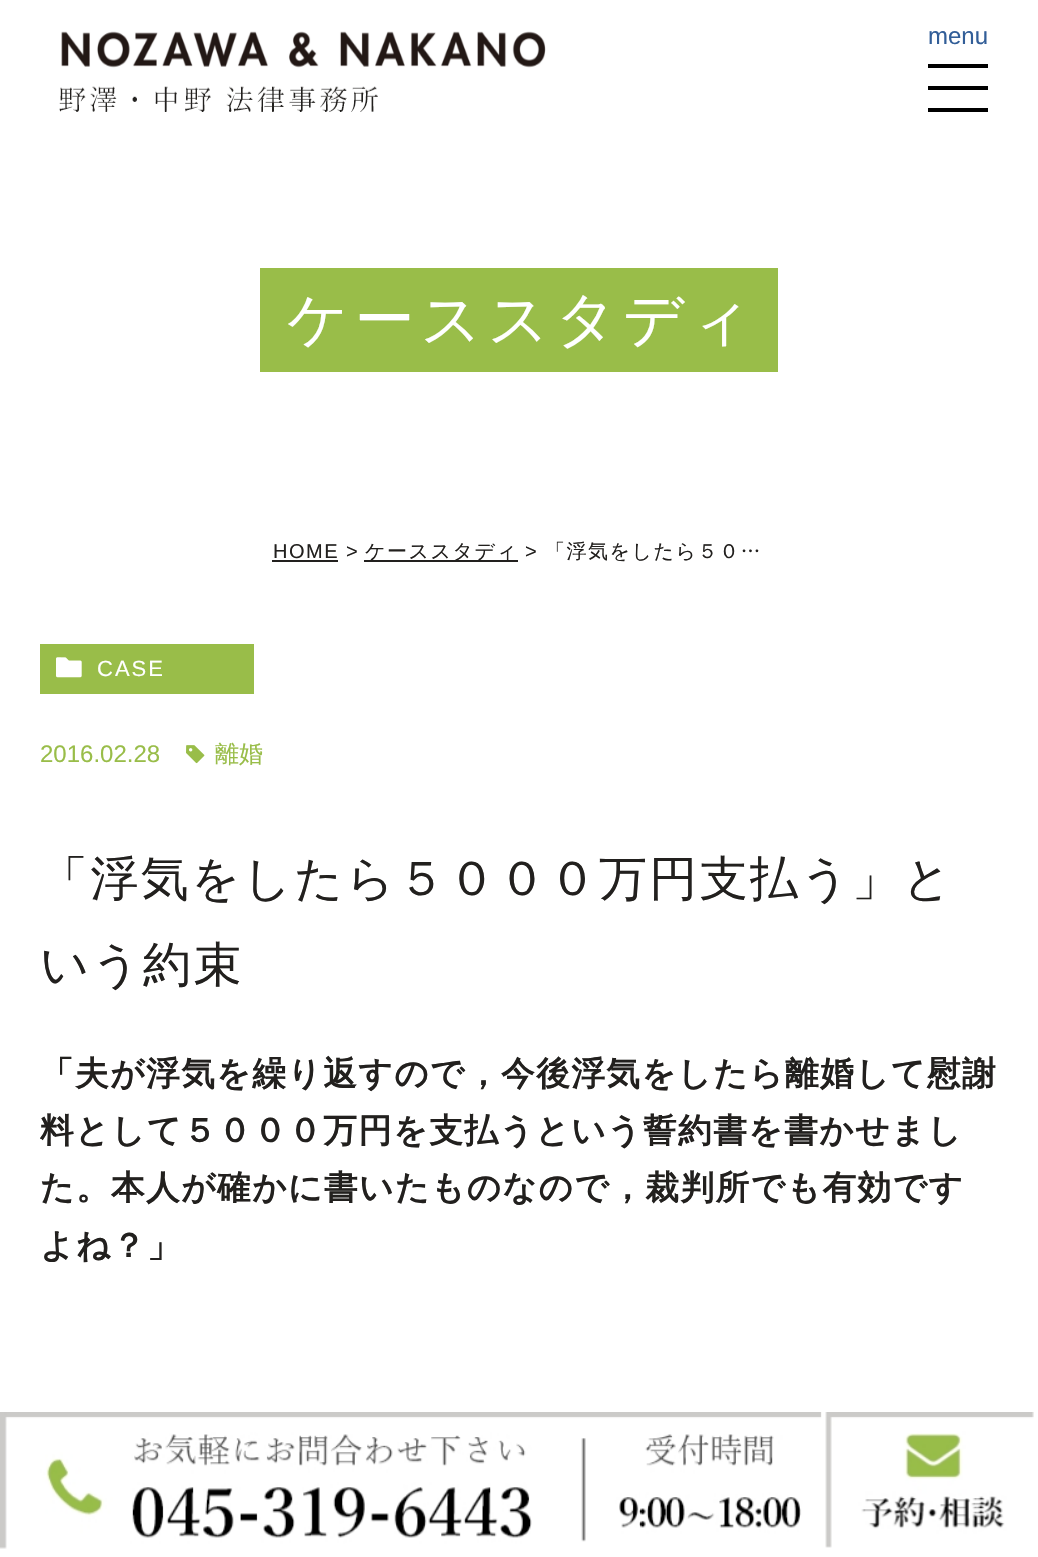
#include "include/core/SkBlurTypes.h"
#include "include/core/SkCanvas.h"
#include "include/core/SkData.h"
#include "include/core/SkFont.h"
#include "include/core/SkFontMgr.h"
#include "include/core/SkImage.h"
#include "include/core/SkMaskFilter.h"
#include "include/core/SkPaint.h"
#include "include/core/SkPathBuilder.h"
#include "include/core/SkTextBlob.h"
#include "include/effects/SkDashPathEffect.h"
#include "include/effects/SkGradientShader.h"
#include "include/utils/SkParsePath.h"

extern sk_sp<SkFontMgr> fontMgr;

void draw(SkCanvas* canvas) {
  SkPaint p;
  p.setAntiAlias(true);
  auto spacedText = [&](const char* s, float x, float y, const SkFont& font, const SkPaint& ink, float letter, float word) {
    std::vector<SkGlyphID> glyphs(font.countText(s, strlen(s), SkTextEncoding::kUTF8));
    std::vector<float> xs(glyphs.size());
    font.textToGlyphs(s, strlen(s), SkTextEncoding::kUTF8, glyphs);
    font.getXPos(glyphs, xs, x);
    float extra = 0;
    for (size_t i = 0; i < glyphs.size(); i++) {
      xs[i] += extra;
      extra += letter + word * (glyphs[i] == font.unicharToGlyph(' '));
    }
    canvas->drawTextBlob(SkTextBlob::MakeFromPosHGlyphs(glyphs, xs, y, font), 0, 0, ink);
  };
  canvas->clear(SK_ColorWHITE);
  canvas->drawImageRect(SkImages::DeferredFromEncodedData(SkData::MakeFromFileName("images/1.png")), SkRect::MakeLTRB(59, 31, 546, 112), SkSamplingOptions());
  p.setColor(SK_ColorBLACK);
  canvas->drawRect(SkRect::MakeLTRB(928, 64, 988, 68), p);
  canvas->drawRect(SkRect::MakeLTRB(928, 86, 988, 90), p);
  canvas->drawRect(SkRect::MakeLTRB(928, 108, 988, 112), p);
  p.setColor(SkColorSetRGB(153, 189, 73));
  canvas->drawRect(SkRect::MakeLTRB(260, 268, 778, 372), p);
  p.setColor(SkColorSetRGB(34, 32, 30));
  canvas->drawRect(SkRect::MakeLTRB(272, 560, 338, 562), p);
  canvas->drawRect(SkRect::MakeLTRB(364, 560, 518, 562), p);
  p.setColor(SkColorSetRGB(153, 189, 73));
  canvas->drawRect(SkRect::MakeLTRB(40, 644, 254, 694), p);
  canvas->drawImageRect(SkImages::DeferredFromEncodedData(SkData::MakeFromFileName("images/2.png")), SkRect::MakeLTRB(56, 657, 82, 678), SkSamplingOptions());
  canvas->drawImageRect(SkImages::DeferredFromEncodedData(SkData::MakeFromFileName("images/3.png")), SkRect::MakeLTRB(186, 745, 205, 764), SkSamplingOptions());
  canvas->drawImageRect(SkImages::DeferredFromEncodedData(SkData::MakeFromFileName("images/4.png")), SkRect::MakeLTRB(0, 1412, 822, 1549), SkSamplingOptions());
  canvas->drawImageRect(SkImages::DeferredFromEncodedData(SkData::MakeFromFileName("images/5.png")), SkRect::MakeLTRB(825, 1412, 1034, 1548), SkSamplingOptions());
  SkFont font1(fontMgr->matchFamilyStyle("Liberation Sans", SkFontStyle::Normal()), 24);
  font1.setSubpixel(true);
  p.setColor(SkColorSetRGB(50, 94, 152));
  canvas->drawString("menu", 928, 44, font1, p);
  SkFont font2(fontMgr->matchFamilyStyle("WenQuanYi Zen Hei", SkFontStyle(500, SkFontStyle::kNormal_Width, SkFontStyle::kUpright_Slant)), 60);
  font2.setSubpixel(true);
  p.setColor(SK_ColorWHITE);
  spacedText("ケーススタディ", 287, 340, font2, p, 6, 0);
  SkFont font3(fontMgr->matchFamilyStyle("Liberation Sans", SkFontStyle::Normal()), 20);
  font3.setSubpixel(true);
  p.setColor(SkColorSetRGB(34, 32, 30));
  spacedText("HOME >", 273, 558, font3, p, 1.5f, 0);
  SkFont font4(fontMgr->matchFamilyStyle("WenQuanYi Zen Hei", SkFontStyle(500, SkFontStyle::kNormal_Width, SkFontStyle::kUpright_Slant)), 20);
  font4.setSubpixel(true);
  spacedText("ケーススタディ", 365, 558, font4, p, 1.5f, 0);
  spacedText(">", 525, 558, font3, p, 1.5f, 0);
  spacedText("「浮気をしたら５０…", 545, 558, font4, p, 1.5f, 0);
  SkFont font5(fontMgr->matchFamilyStyle("Liberation Sans", SkFontStyle::Normal()), 22);
  font5.setSubpixel(true);
  p.setColor(SK_ColorWHITE);
  spacedText("CASE", 97, 676, font5, p, 2, 0);
  p.setColor(SkColorSetRGB(153, 189, 73));
  canvas->drawString("2016.02.28", 40, 762, font1, p);
  SkFont font6(fontMgr->matchFamilyStyle("WenQuanYi Zen Hei", SkFontStyle(500, SkFontStyle::kNormal_Width, SkFontStyle::kUpright_Slant)), 24);
  font6.setSubpixel(true);
  canvas->drawString("離婚", 215, 762, font6, p);
  SkFont font7(fontMgr->matchFamilyStyle("WenQuanYi Zen Hei", SkFontStyle(500, SkFontStyle::kNormal_Width, SkFontStyle::kUpright_Slant)), 48);
  font7.setSubpixel(true);
  p.setColor(SkColorSetRGB(34, 32, 30));
  spacedText("「浮気をしたら５０００万円支払う」と", 40, 895, font7, p, 2.4f, 0);
  spacedText("いう約束", 40, 981, font7, p, 2.4f, 0);
  SkFont font8(fontMgr->matchFamilyStyle("WenQuanYi Zen Hei", SkFontStyle::Bold()), 33.6f);
  font8.setSubpixel(true);
  spacedText("「夫が浮気を繰り返すので，今後浮気をしたら離婚して慰謝", 40, 1085, font8, p, 1.5f, 0);
  spacedText("料として５０００万円を支払うという誓約書を書かせまし", 40, 1142, font8, p, 1.5f, 0);
  spacedText("た。本人が確かに書いたものなので，裁判所でも有効です", 40, 1199, font8, p, 1.5f, 0);
  spacedText("よね？」", 40, 1257, font8, p, 1.5f, 0);
}
